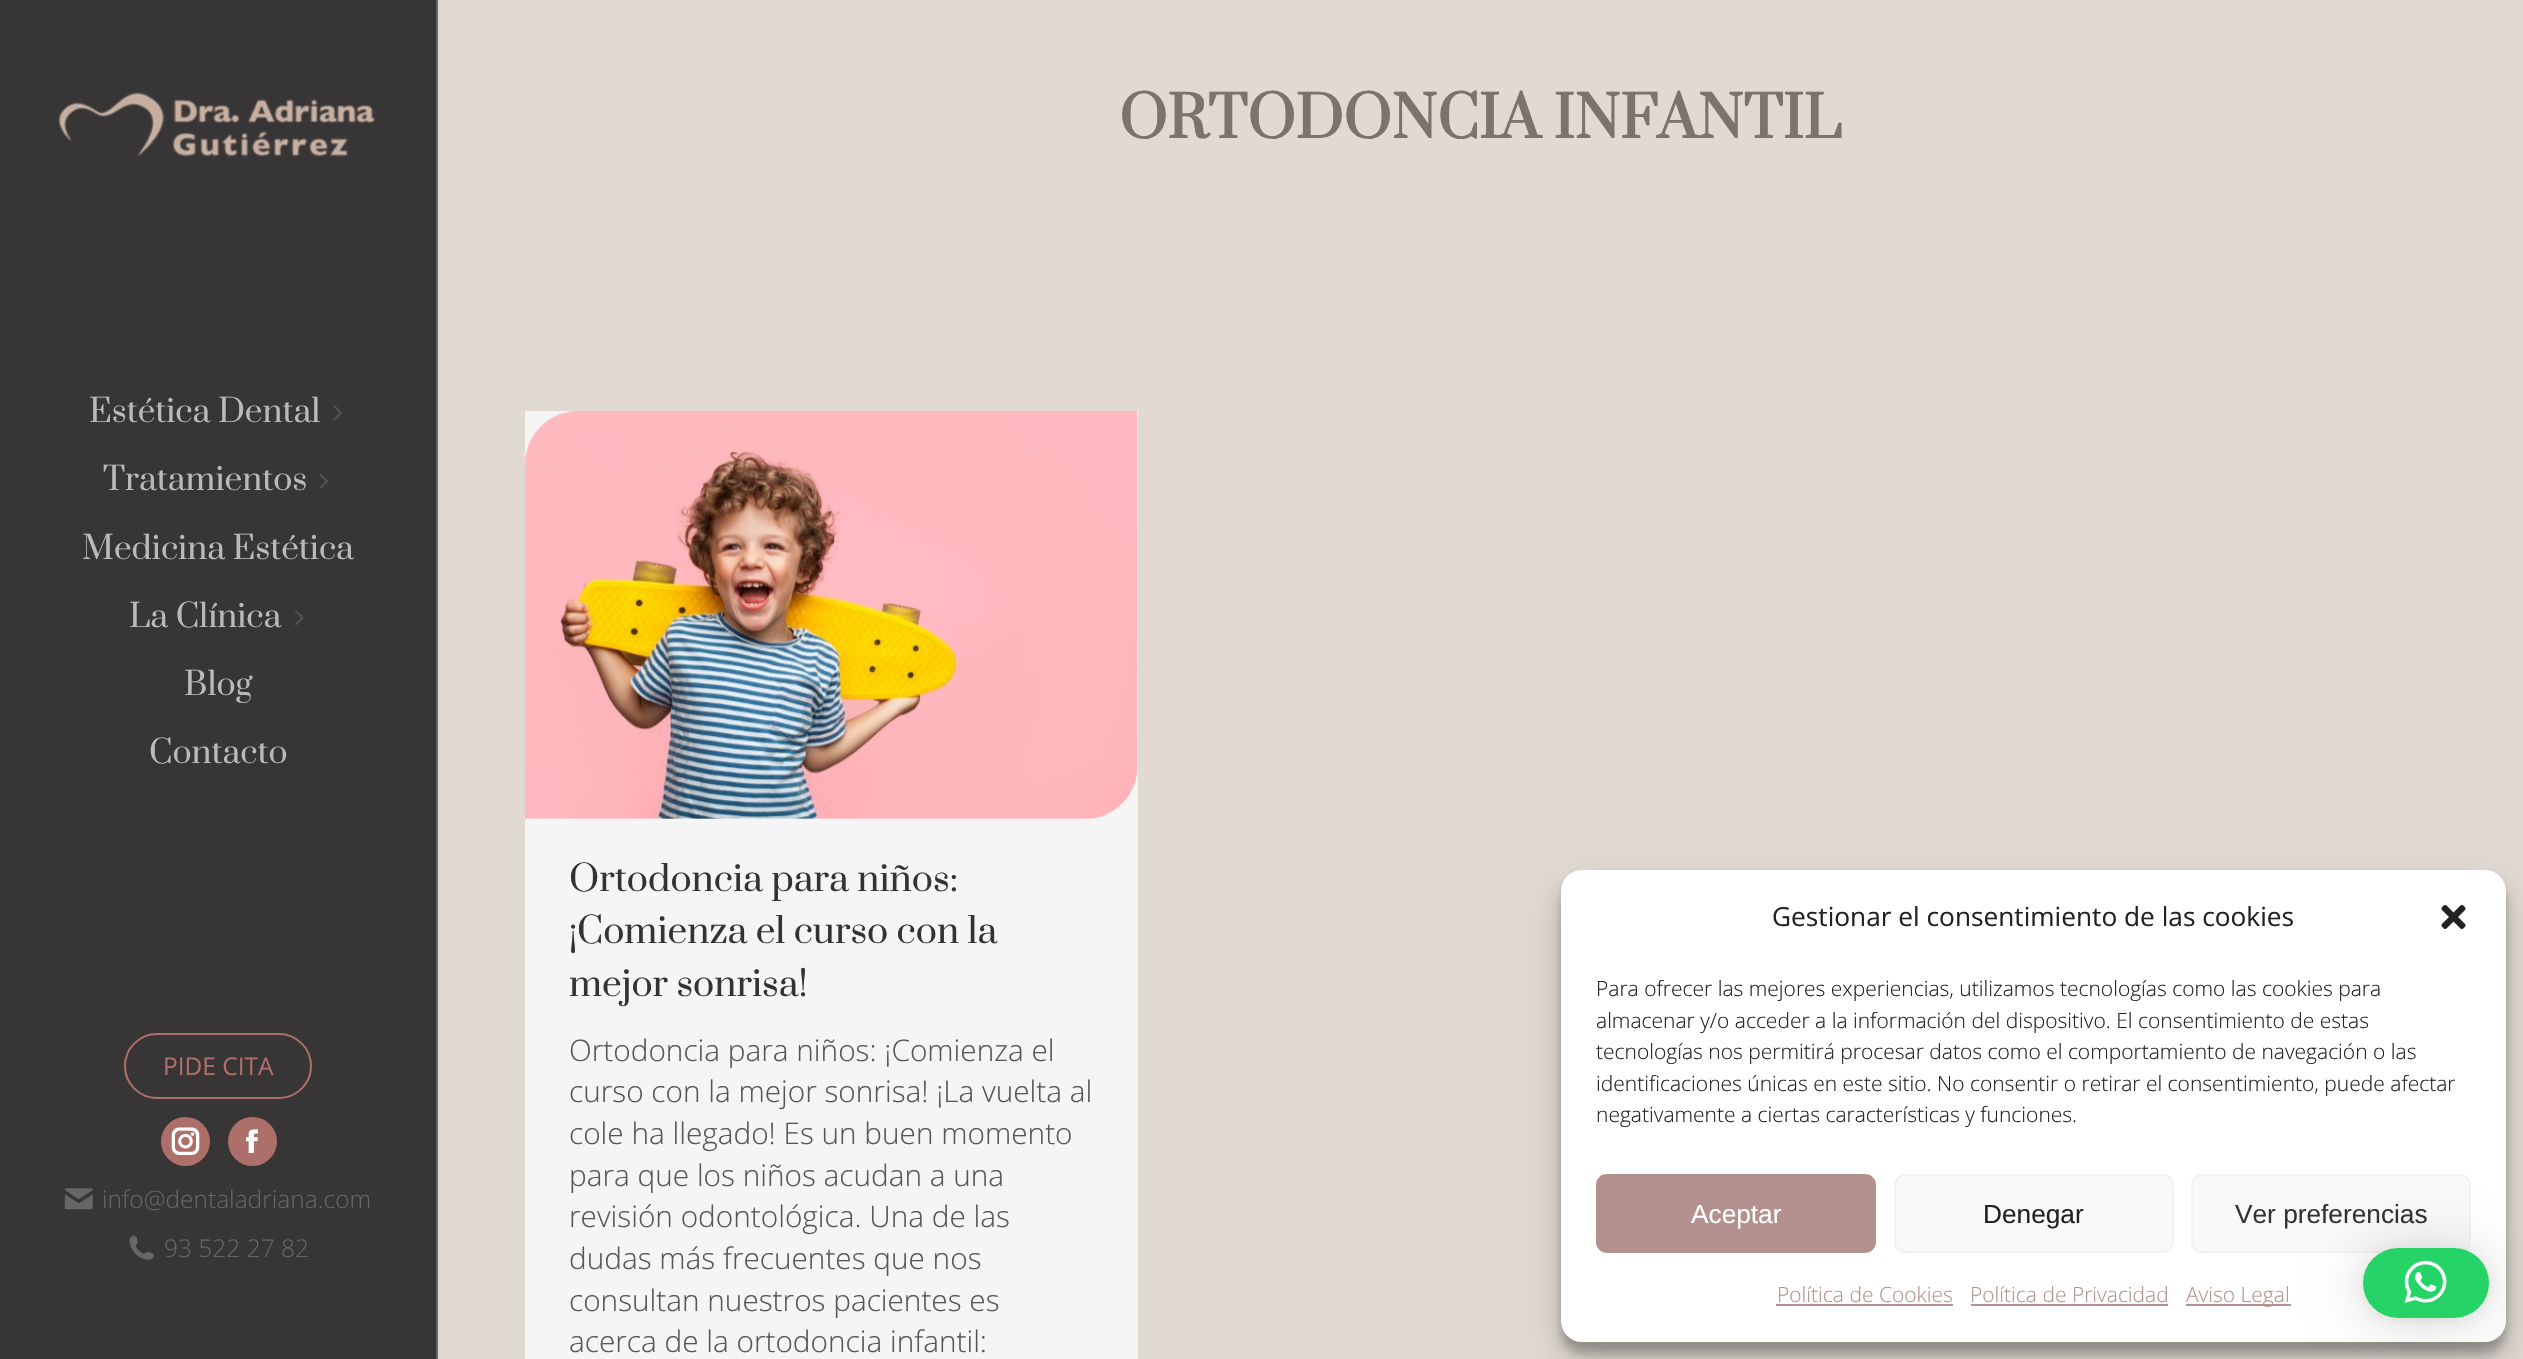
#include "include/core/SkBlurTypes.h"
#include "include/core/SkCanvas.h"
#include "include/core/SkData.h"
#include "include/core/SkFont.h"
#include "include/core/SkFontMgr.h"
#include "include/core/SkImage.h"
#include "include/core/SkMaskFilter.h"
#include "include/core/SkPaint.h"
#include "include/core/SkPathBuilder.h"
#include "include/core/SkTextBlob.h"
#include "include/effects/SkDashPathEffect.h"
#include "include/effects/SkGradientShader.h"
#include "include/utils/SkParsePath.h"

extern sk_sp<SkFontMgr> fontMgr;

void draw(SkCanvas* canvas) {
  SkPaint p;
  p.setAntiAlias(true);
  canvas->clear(SkColorSetRGB(224, 218, 210));
  p.setColor(SkColorSetRGB(56, 53, 54));
  canvas->drawRect(SkRect::MakeLTRB(0, 0, 436, 1359), p);
  p.setColor(SkColorSetRGB(101, 102, 103));
  canvas->drawRect(SkRect::MakeLTRB(436, 0, 438, 1359), p);
  canvas->drawImageRect(SkImages::DeferredFromEncodedData(SkData::MakeFromFileName("images/1.png")), SkRect::MakeLTRB(58, 92, 375, 157), SkSamplingOptions());
  canvas->drawImageRect(SkImages::DeferredFromEncodedData(SkData::MakeFromFileName("images/2.png")), SkRect::MakeLTRB(333, 405, 342, 421), SkSamplingOptions());
  canvas->drawImageRect(SkImages::DeferredFromEncodedData(SkData::MakeFromFileName("images/3.png")), SkRect::MakeLTRB(319, 473, 328, 489), SkSamplingOptions());
  canvas->drawImageRect(SkImages::DeferredFromEncodedData(SkData::MakeFromFileName("images/4.png")), SkRect::MakeLTRB(295, 610, 304, 626), SkSamplingOptions());
  p.setStyle(SkPaint::kStroke_Style);
  p.setStrokeWidth(2);
  p.setColor(SkColorSetRGB(173, 111, 105));
  canvas->drawRoundRect(SkRect::MakeLTRB(125, 1034, 311, 1098), 32, 32, p);
  p.setStyle(SkPaint::kFill_Style);
  canvas->drawCircle(185.5f, 1141.5f, 24.5f, p);
  canvas->drawImageRect(SkImages::DeferredFromEncodedData(SkData::MakeFromFileName("images/5.png")), SkRect::MakeLTRB(171, 1127, 200, 1155), SkSamplingOptions());
  canvas->drawCircle(252.5f, 1141.5f, 24.5f, p);
  canvas->drawImageRect(SkImages::DeferredFromEncodedData(SkData::MakeFromFileName("images/6.png")), SkRect::MakeLTRB(246, 1129, 258, 1153), SkSamplingOptions());
  canvas->drawImageRect(SkImages::DeferredFromEncodedData(SkData::MakeFromFileName("images/7.png")), SkRect::MakeLTRB(64, 1188, 93, 1210), SkSamplingOptions());
  canvas->drawImageRect(SkImages::DeferredFromEncodedData(SkData::MakeFromFileName("images/8.png")), SkRect::MakeLTRB(129, 1235, 154, 1260), SkSamplingOptions());
  p.setColor(SkColorSetRGB(245, 245, 245));
  canvas->drawRect(SkRect::MakeLTRB(525, 411, 1138, 1359), p);
  canvas->drawImageRect(SkImages::DeferredFromEncodedData(SkData::MakeFromFileName("images/9.png")), SkRect::MakeLTRB(525, 411, 1138, 819), SkSamplingOptions());
  p.setColor(SkColorSetARGB(59, 0, 0, 0));
  p.setMaskFilter(SkMaskFilter::MakeBlur(kNormal_SkBlurStyle, 5));
  canvas->drawRoundRect(SkRect::MakeLTRB(1561, 880, 2506, 1353), 21, 21, p);
  p.setMaskFilter(nullptr);
  p.setColor(SkColorSetARGB(48, 0, 0, 0));
  p.setMaskFilter(SkMaskFilter::MakeBlur(kNormal_SkBlurStyle, 17.5f));
  canvas->drawRoundRect(SkRect::MakeLTRB(1561, 887, 2506, 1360), 21, 21, p);
  p.setMaskFilter(nullptr);
  p.setColor(SK_ColorWHITE);
  canvas->drawRoundRect(SkRect::MakeLTRB(1561, 870, 2506, 1342), 21, 21, p);
  canvas->drawImageRect(SkImages::DeferredFromEncodedData(SkData::MakeFromFileName("images/10.png")), SkRect::MakeLTRB(2441, 905, 2466, 929), SkSamplingOptions());
  p.setColor(SkColorSetRGB(180, 145, 143));
  canvas->drawRoundRect(SkRect::MakeLTRB(1597, 1175, 1875, 1252), 10, 10, p);
  p.setStyle(SkPaint::kStroke_Style);
  canvas->drawRoundRect(SkRect::MakeLTRB(1597, 1175, 1875, 1252), 10, 10, p);
  p.setStyle(SkPaint::kFill_Style);
  p.setColor(SkColorSetRGB(249, 249, 249));
  canvas->drawRoundRect(SkRect::MakeLTRB(1895, 1175, 2173, 1252), 10, 10, p);
  p.setStyle(SkPaint::kStroke_Style);
  p.setColor(SkColorSetRGB(242, 242, 242));
  canvas->drawRoundRect(SkRect::MakeLTRB(1895, 1175, 2173, 1252), 10, 10, p);
  p.setStyle(SkPaint::kFill_Style);
  p.setColor(SkColorSetRGB(249, 249, 249));
  canvas->drawRoundRect(SkRect::MakeLTRB(2192, 1175, 2470, 1252), 10, 10, p);
  p.setStyle(SkPaint::kStroke_Style);
  p.setColor(SkColorSetRGB(242, 242, 242));
  canvas->drawRoundRect(SkRect::MakeLTRB(2192, 1175, 2470, 1252), 10, 10, p);
  p.setStyle(SkPaint::kFill_Style);
  p.setColor(SkColorSetRGB(180, 145, 143));
  canvas->drawRect(SkRect::MakeLTRB(1776, 1304, 1953, 1306), p);
  canvas->drawRect(SkRect::MakeLTRB(1971, 1304, 2168, 1306), p);
  canvas->drawRect(SkRect::MakeLTRB(2186, 1304, 2291, 1306), p);
  p.setColor(SkColorSetARGB(41, 0, 0, 0));
  p.setMaskFilter(SkMaskFilter::MakeBlur(kNormal_SkBlurStyle, 28));
  canvas->drawRoundRect(SkRect::MakeLTRB(2363, 1251, 2489, 1321), 35, 35, p);
  p.setMaskFilter(nullptr);
  p.setColor(SkColorSetARGB(15, 0, 0, 0));
  p.setMaskFilter(SkMaskFilter::MakeBlur(kNormal_SkBlurStyle, 5));
  canvas->drawRoundRect(SkRect::MakeLTRB(2363, 1250, 2489, 1320), 35, 35, p);
  p.setMaskFilter(nullptr);
  p.setColor(SkColorSetRGB(37, 211, 102));
  canvas->drawRoundRect(SkRect::MakeLTRB(2363, 1248, 2489, 1318), 35, 35, p);
  canvas->drawImageRect(SkImages::DeferredFromEncodedData(SkData::MakeFromFileName("images/11.png")), SkRect::MakeLTRB(2404, 1260, 2447, 1303), SkSamplingOptions());
  SkFont font1(fontMgr->matchFamilyStyle("Prata", SkFontStyle::Bold()), 56);
  font1.setSubpixel(true);
  p.setColor(SkColorSetRGB(125, 115, 110));
  canvas->drawString("ORTODONCIA INFANTIL", 1119, 138, font1, p);
  SkFont font2(fontMgr->matchFamilyStyle("Prata", SkFontStyle::Normal()), 31.5f);
  font2.setSubpixel(true);
  p.setColor(SkColorSetRGB(186, 186, 186));
  canvas->drawString("Estética Dental", 89, 422, font2, p);
  canvas->drawString("Tratamientos", 103, 490, font2, p);
  canvas->drawString("Medicina Estética", 82, 559, font2, p);
  canvas->drawString("La Clínica", 129, 627, font2, p);
  canvas->drawString("Blog", 184, 695, font2, p);
  canvas->drawString("Contacto", 149, 763, font2, p);
  SkFont font3(fontMgr->matchFamilyStyle("Open Sans", SkFontStyle::Normal()), 24.5f);
  font3.setSubpixel(true);
  p.setColor(SkColorSetRGB(173, 111, 105));
  canvas->drawString("PIDE CITA", 163, 1075, font3, p);
  SkFont font4(fontMgr->matchFamilyStyle("Open Sans", SkFontStyle(300, SkFontStyle::kNormal_Width, SkFontStyle::kUpright_Slant)), 24.5f);
  font4.setSubpixel(true);
  p.setColor(SkColorSetRGB(101, 102, 103));
  canvas->drawString("info@dentaladriana.com", 102, 1208, font4, p);
  canvas->drawString("93 522 27 82", 164, 1257, font4, p);
  SkFont font5(fontMgr->matchFamilyStyle("Prata", SkFontStyle::Normal()), 35);
  font5.setSubpixel(true);
  p.setColor(SkColorSetRGB(51, 51, 51));
  canvas->drawString("Ortodoncia para niños:", 569, 891, font5, p);
  canvas->drawString("¡Comienza el curso con la", 569, 943, font5, p);
  canvas->drawString("mejor sonrisa!", 569, 996, font5, p);
  SkFont font6(fontMgr->matchFamilyStyle("Open Sans", SkFontStyle(300, SkFontStyle::kNormal_Width, SkFontStyle::kUpright_Slant)), 29.75f);
  font6.setSubpixel(true);
  p.setColor(SkColorSetRGB(86, 86, 86));
  canvas->drawString("Ortodoncia para niños: ¡Comienza el", 569, 1061, font6, p);
  canvas->drawString("curso con la mejor sonrisa! ¡La vuelta al", 569, 1102, font6, p);
  canvas->drawString("cole ha llegado! Es un buen momento", 569, 1144, font6, p);
  canvas->drawString("para que los niños acudan a una", 569, 1186, font6, p);
  canvas->drawString("revisión odontológica. Una de las", 569, 1227, font6, p);
  canvas->drawString("dudas más frecuentes que nos", 569, 1269, font6, p);
  canvas->drawString("consultan nuestros pacientes es", 569, 1311, font6, p);
  canvas->drawString("acerca de la ortodoncia infantil:", 569, 1352, font6, p);
  SkFont font7(fontMgr->matchFamilyStyle("Open Sans", SkFontStyle::Normal()), 26.25f);
  font7.setSubpixel(true);
  p.setColor(SkColorSetRGB(34, 34, 34));
  canvas->drawString("Gestionar el consentimiento de las cookies", 1772, 926, font7, p);
  SkFont font8(fontMgr->matchFamilyStyle("Open Sans", SkFontStyle(300, SkFontStyle::kNormal_Width, SkFontStyle::kUpright_Slant)), 21);
  font8.setSubpixel(true);
  canvas->drawString("Para ofrecer las mejores experiencias, utilizamos tecnologías como las cookies para", 1596, 996, font8, p);
  canvas->drawString("almacenar y/o acceder a la información del dispositivo. El consentimiento de estas", 1596, 1028, font8, p);
  canvas->drawString("tecnologías nos permitirá procesar datos como el comportamiento de navegación o las", 1596, 1059, font8, p);
  canvas->drawString("identificaciones únicas en este sitio. No consentir o retirar el consentimiento, puede afectar", 1596, 1091, font8, p);
  canvas->drawString("negativamente a ciertas características y funciones.", 1596, 1122, font8, p);
  SkFont font9(fontMgr->matchFamilyStyle("Liberation Sans", SkFontStyle::Normal()), 26.25f);
  font9.setSubpixel(true);
  p.setColor(SK_ColorWHITE);
  canvas->drawString("Aceptar", 1691, 1223, font9, p);
  p.setColor(SkColorSetRGB(34, 34, 34));
  canvas->drawString("Denegar", 1983, 1223, font9, p);
  p.setColor(SkColorSetRGB(51, 51, 51));
  canvas->drawString("Ver preferencias", 2235, 1223, font9, p);
  p.setColor(SkColorSetRGB(180, 145, 143));
  canvas->drawString("Política de Cookies", 1777, 1302, font8, p);
  canvas->drawString("Política de Privacidad", 1970, 1302, font8, p);
  canvas->drawString("Aviso Legal", 2186, 1302, font8, p);
}
